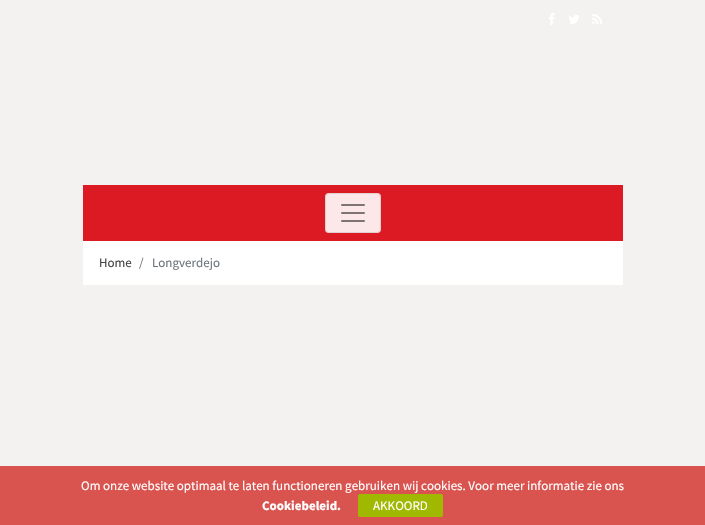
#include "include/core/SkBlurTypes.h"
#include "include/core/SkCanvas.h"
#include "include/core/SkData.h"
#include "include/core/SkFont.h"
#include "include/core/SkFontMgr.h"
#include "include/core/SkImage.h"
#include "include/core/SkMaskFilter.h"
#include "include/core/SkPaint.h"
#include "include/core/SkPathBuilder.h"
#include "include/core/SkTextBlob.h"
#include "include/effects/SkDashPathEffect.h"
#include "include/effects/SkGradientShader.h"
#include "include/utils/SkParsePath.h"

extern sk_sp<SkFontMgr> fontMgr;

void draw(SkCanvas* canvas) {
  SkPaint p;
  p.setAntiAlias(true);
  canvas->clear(SkColorSetRGB(243, 242, 241));
  canvas->drawImageRect(SkImages::DeferredFromEncodedData(SkData::MakeFromFileName("images/1.png")), SkRect::MakeLTRB(548, 13, 555, 25), SkSamplingOptions());
  canvas->drawImageRect(SkImages::DeferredFromEncodedData(SkData::MakeFromFileName("images/2.png")), SkRect::MakeLTRB(569, 15, 579, 24), SkSamplingOptions());
  canvas->drawImageRect(SkImages::DeferredFromEncodedData(SkData::MakeFromFileName("images/3.png")), SkRect::MakeLTRB(592, 14, 602, 24), SkSamplingOptions());
  p.setColor(SkColorSetRGB(220, 26, 35));
  canvas->drawRect(SkRect::MakeLTRB(83, 185, 623, 241), p);
  p.setColor(SkColorSetRGB(252, 232, 233));
  canvas->drawRoundRect(SkRect::MakeLTRB(325, 193, 381, 233), 4, 4, p);
  p.setStyle(SkPaint::kStroke_Style);
  p.setStrokeWidth(1);
  p.setColor(SkColorSetARGB(26, 0, 0, 0));
  canvas->drawRoundRect(SkRect::MakeLTRB(325.5f, 193.5f, 380.5f, 232.5f), 3.5f, 3.5f, p);
  canvas->drawImageRect(SkImages::DeferredFromEncodedData(SkData::MakeFromFileName("images/4.png")), SkRect::MakeLTRB(341, 204, 365, 222), SkSamplingOptions());
  p.setStyle(SkPaint::kFill_Style);
  p.setColor(SK_ColorWHITE);
  canvas->drawRect(SkRect::MakeLTRB(83, 241, 623, 285), p);
  p.setColor(SkColorSetRGB(217, 83, 79));
  canvas->drawRect(SkRect::MakeLTRB(0, 466, 705, 525), p);
  p.setColor(SkColorSetRGB(160, 184, 0));
  canvas->drawRoundRect(SkRect::MakeLTRB(358, 494, 443, 517), 2, 2, p);
  SkFont font1(fontMgr->matchFamilyStyle("Source Sans Pro", SkFontStyle::Normal()), 13);
  font1.setSubpixel(true);
  p.setColor(SkColorSetRGB(69, 69, 69));
  canvas->drawString("Home", 99, 267, font1, p);
  p.setColor(SkColorSetRGB(108, 117, 125));
  canvas->drawString("/", 139, 267, font1, p);
  canvas->drawString("Longverdejo", 152, 267, font1, p);
  p.setColor(SK_ColorWHITE);
  canvas->drawString("Om onze website optimaal te laten functioneren gebruiken wij cookies. Voor meer informatie zie ons", 81, 490, font1, p);
  SkFont font2(fontMgr->matchFamilyStyle("Source Sans Pro", SkFontStyle::Bold()), 13);
  font2.setSubpixel(true);
  canvas->drawString("Cookiebeleid.", 262, 510, font2, p);
  canvas->drawString("AKKOORD", 373, 510, font1, p);
}
